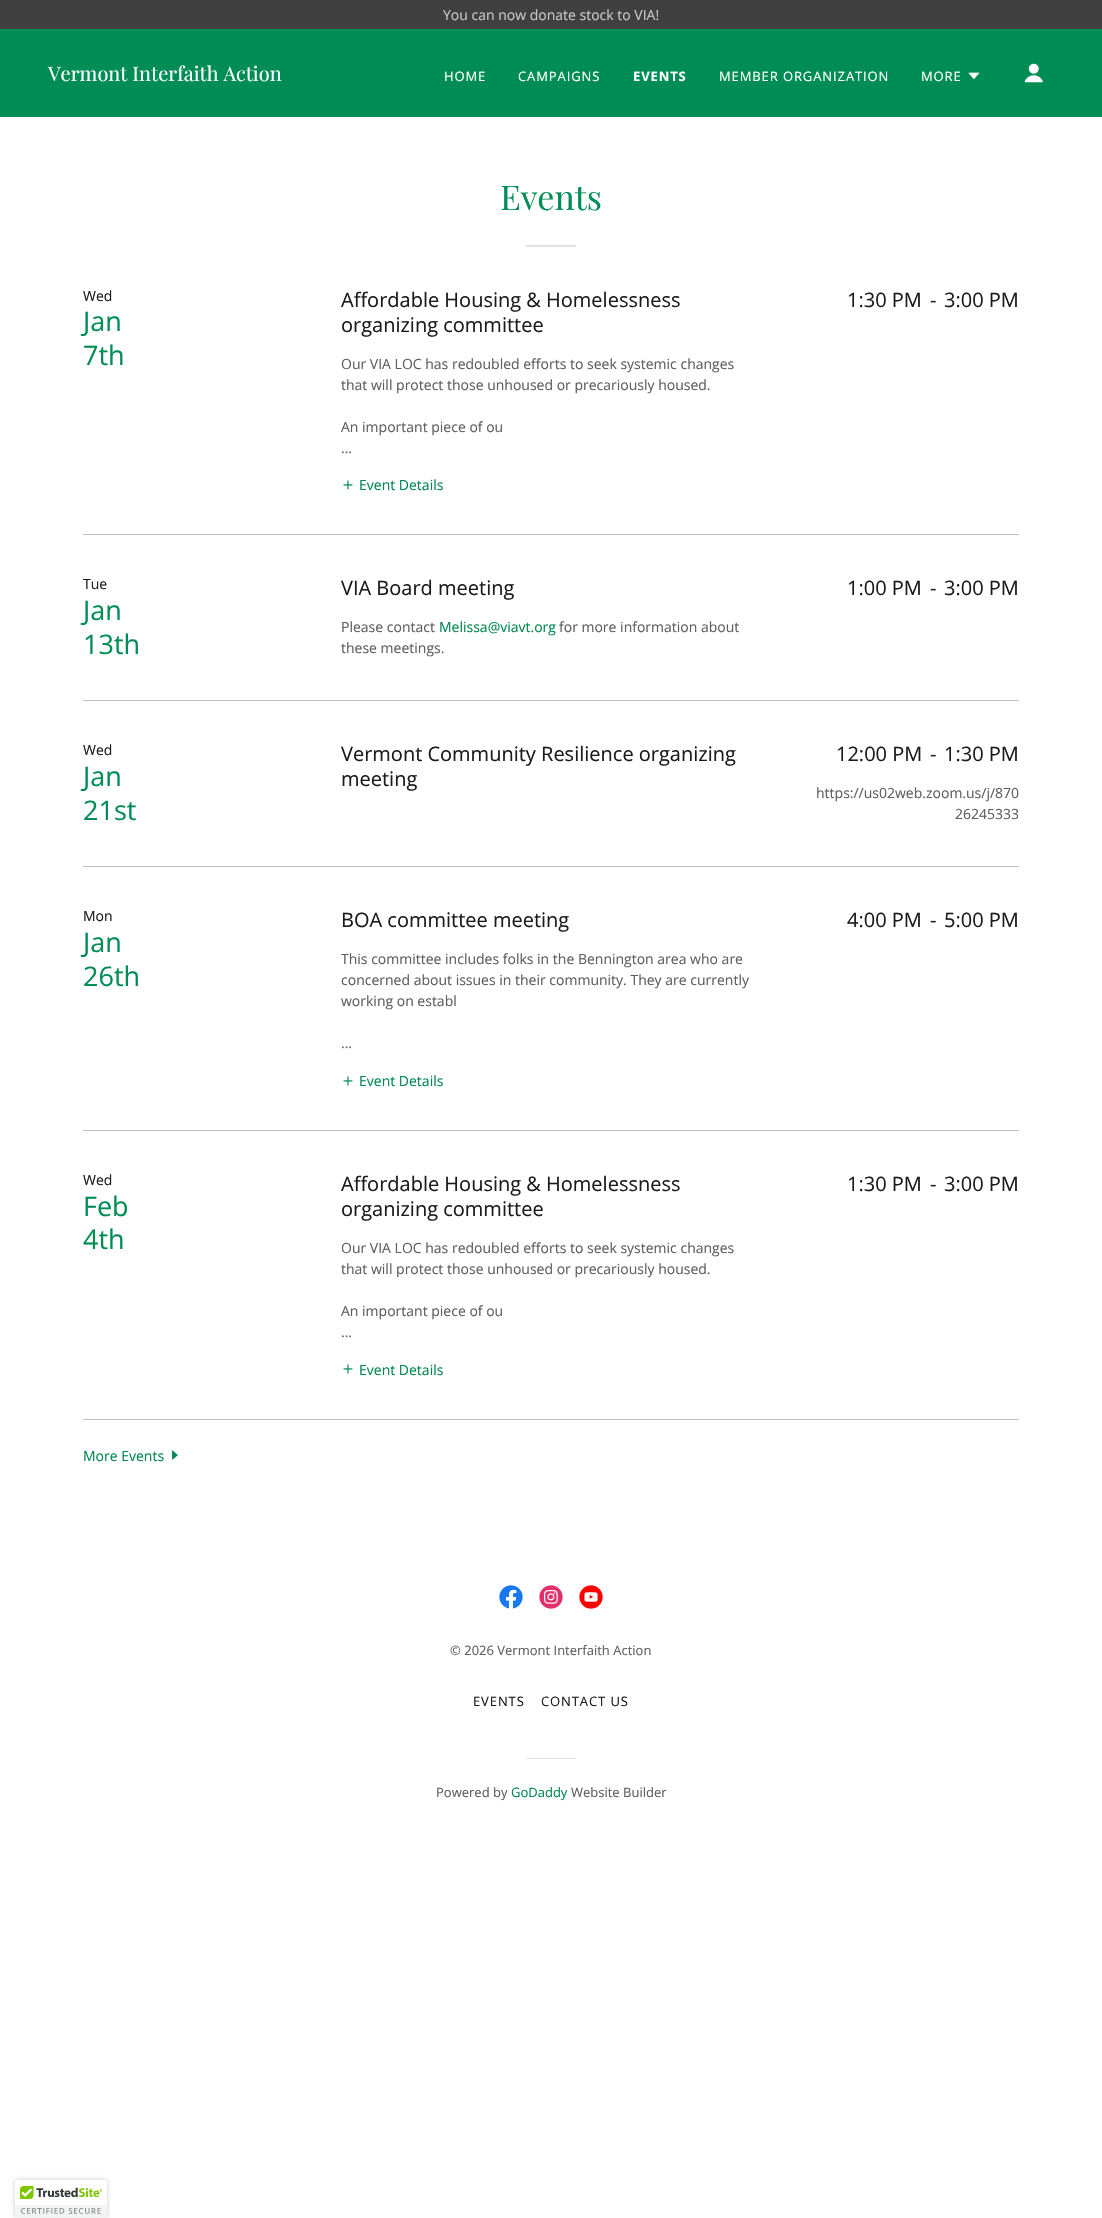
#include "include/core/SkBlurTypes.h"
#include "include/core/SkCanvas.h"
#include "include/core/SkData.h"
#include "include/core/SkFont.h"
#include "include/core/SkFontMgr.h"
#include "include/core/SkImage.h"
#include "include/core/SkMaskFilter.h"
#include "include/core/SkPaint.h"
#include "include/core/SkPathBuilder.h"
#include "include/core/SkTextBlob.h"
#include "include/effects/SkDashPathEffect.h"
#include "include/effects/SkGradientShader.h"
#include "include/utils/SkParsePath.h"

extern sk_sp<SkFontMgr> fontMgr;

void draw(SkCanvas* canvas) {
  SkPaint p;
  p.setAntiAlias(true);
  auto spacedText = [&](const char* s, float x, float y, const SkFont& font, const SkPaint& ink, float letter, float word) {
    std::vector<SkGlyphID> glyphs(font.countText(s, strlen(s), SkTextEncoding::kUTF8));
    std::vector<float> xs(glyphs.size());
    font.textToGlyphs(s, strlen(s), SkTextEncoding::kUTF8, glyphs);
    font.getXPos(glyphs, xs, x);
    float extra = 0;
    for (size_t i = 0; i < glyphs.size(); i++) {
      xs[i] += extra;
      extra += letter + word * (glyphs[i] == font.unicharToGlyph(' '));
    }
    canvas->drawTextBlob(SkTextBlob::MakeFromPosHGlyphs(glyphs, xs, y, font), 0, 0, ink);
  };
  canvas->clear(SK_ColorWHITE);
  p.setColor(SkColorSetRGB(0, 141, 85));
  canvas->drawRect(SkRect::MakeLTRB(0, 29, 1102, 117), p);
  p.setColor(SkColorSetRGB(64, 64, 64));
  canvas->drawRect(SkRect::MakeLTRB(0, 0, 1102, 29), p);
  canvas->drawImageRect(SkImages::DeferredFromEncodedData(SkData::MakeFromFileName("images/1.png")), SkRect::MakeLTRB(968, 72, 980, 80), SkSamplingOptions());
  canvas->drawImageRect(SkImages::DeferredFromEncodedData(SkData::MakeFromFileName("images/2.png")), SkRect::MakeLTRB(1024, 63, 1043, 83), SkSamplingOptions());
  p.setColor(SkColorSetRGB(226, 226, 226));
  canvas->drawRect(SkRect::MakeLTRB(526, 245, 576, 247), p);
  p.setColor(SkColorSetRGB(191, 191, 191));
  canvas->drawRect(SkRect::MakeLTRB(83, 534, 1019, 535), p);
  canvas->drawImageRect(SkImages::DeferredFromEncodedData(SkData::MakeFromFileName("images/3.png")), SkRect::MakeLTRB(343, 480, 353, 490), SkSamplingOptions());
  canvas->drawRect(SkRect::MakeLTRB(83, 700, 1019, 701), p);
  canvas->drawRect(SkRect::MakeLTRB(83, 866, 1019, 867), p);
  canvas->drawRect(SkRect::MakeLTRB(83, 1130, 1019, 1131), p);
  canvas->drawImageRect(SkImages::DeferredFromEncodedData(SkData::MakeFromFileName("images/3.png")), SkRect::MakeLTRB(343, 1076, 353, 1086), SkSamplingOptions());
  canvas->drawRect(SkRect::MakeLTRB(83, 1419, 1019, 1420), p);
  canvas->drawImageRect(SkImages::DeferredFromEncodedData(SkData::MakeFromFileName("images/3.png")), SkRect::MakeLTRB(343, 1364, 353, 1374), SkSamplingOptions());
  canvas->drawImageRect(SkImages::DeferredFromEncodedData(SkData::MakeFromFileName("images/4.png")), SkRect::MakeLTRB(172, 1450, 178, 1460), SkSamplingOptions());
  canvas->drawImageRect(SkImages::DeferredFromEncodedData(SkData::MakeFromFileName("images/5.png")), SkRect::MakeLTRB(499, 1585, 523, 1609), SkSamplingOptions());
  canvas->drawImageRect(SkImages::DeferredFromEncodedData(SkData::MakeFromFileName("images/6.png")), SkRect::MakeLTRB(539, 1585, 563, 1609), SkSamplingOptions());
  canvas->drawImageRect(SkImages::DeferredFromEncodedData(SkData::MakeFromFileName("images/7.png")), SkRect::MakeLTRB(579, 1585, 603, 1609), SkSamplingOptions());
  p.setColor(SkColorSetRGB(226, 226, 226));
  canvas->drawRect(SkRect::MakeLTRB(526, 1758, 576, 1759), p);
  p.setColor(SkColorSetARGB(51, 0, 0, 0));
  p.setMaskFilter(SkMaskFilter::MakeBlur(kNormal_SkBlurStyle, 2.5f));
  canvas->drawRoundRect(SkRect::MakeLTRB(15, 2180, 107, 2218), 2, 2, p);
  p.setMaskFilter(nullptr);
  p.setColor(SK_ColorWHITE);
  canvas->drawPath(SkPathBuilder().moveTo(17, 2180).lineTo(105, 2180).cubicTo(106, 2180, 107, 2181, 107, 2182).lineTo(107, 2218).lineTo(15, 2218).lineTo(15, 2182).cubicTo(15, 2181, 16, 2180, 17, 2180).close().detach(), p);
  canvas->drawImageRect(SkImages::DeferredFromEncodedData(SkData::MakeFromFileName("images/8.png")), SkRect::MakeLTRB(15, 2186, 107, 2218), SkSamplingOptions());
  SkFont font1(fontMgr->matchFamilyStyle("Open Sans", SkFontStyle::Normal()), 14);
  font1.setSubpixel(true);
  p.setColor(SkColorSetRGB(199, 199, 199));
  canvas->drawString("You can now donate stock to VIA!", 443, 20, font1, p);
  SkFont font2(fontMgr->matchFamilyStyle("Playfair Display", SkFontStyle::Normal()), 20);
  font2.setSubpixel(true);
  p.setColor(SK_ColorWHITE);
  canvas->drawString("Vermont Interfaith Action", 48, 81, font2, p);
  SkFont font3(fontMgr->matchFamilyStyle("Open Sans", SkFontStyle::Normal()), 13);
  font3.setSubpixel(true);
  spacedText("HOME", 444, 81, font3, p, 0.9f, 0);
  spacedText("CAMPAIGNS", 518, 81, font3, p, 0.9f, 0);
  SkFont font4(fontMgr->matchFamilyStyle("Open Sans", SkFontStyle::Bold()), 13);
  font4.setSubpixel(true);
  spacedText("EVENTS", 633, 81, font4, p, 0.9f, 0);
  spacedText("MEMBER ORGANIZATION", 719, 81, font3, p, 0.9f, 0);
  spacedText("MORE", 921, 81, font3, p, 0.9f, 0);
  SkFont font5(fontMgr->matchFamilyStyle("Playfair Display", SkFontStyle::Normal()), 34);
  font5.setSubpixel(true);
  p.setColor(SkColorSetRGB(0, 141, 85));
  canvas->drawString("Events", 500, 210, font5, p);
  p.setColor(SkColorSetRGB(27, 27, 27));
  canvas->drawString("Wed", 83, 301, font1, p);
  SkFont font6(fontMgr->matchFamilyStyle("Open Sans", SkFontStyle::Normal()), 27);
  font6.setSubpixel(true);
  p.setColor(SkColorSetRGB(0, 141, 85));
  canvas->drawString("Jan", 83, 331, font6, p);
  canvas->drawString("7th", 83, 365, font6, p);
  SkFont font7(fontMgr->matchFamilyStyle("Open Sans", SkFontStyle::Normal()), 20);
  font7.setSubpixel(true);
  p.setColor(SkColorSetRGB(27, 27, 27));
  canvas->drawString("Affordable Housing & Homelessness", 341, 307, font7, p);
  canvas->drawString("organizing committee", 341, 332, font7, p);
  p.setColor(SkColorSetRGB(94, 94, 94));
  canvas->drawString("Our VIA LOC has redoubled efforts to seek systemic changes", 341, 369, font1, p);
  canvas->drawString("that will protect those unhoused or precariously housed.", 341, 390, font1, p);
  canvas->drawString("An important piece of ou", 341, 432, font1, p);
  canvas->drawString("...", 341, 453, font1, p);
  p.setColor(SkColorSetRGB(0, 135, 81));
  canvas->drawString("Event Details", 359, 490, font1, p);
  p.setColor(SkColorSetRGB(27, 27, 27));
  canvas->drawString("1:30 PM", 847, 307, font7, p);
  canvas->drawString("-", 930, 307, font7, p);
  canvas->drawString("3:00 PM", 944, 307, font7, p);
  canvas->drawString("Tue", 83, 589, font1, p);
  p.setColor(SkColorSetRGB(0, 141, 85));
  canvas->drawString("Jan", 83, 620, font6, p);
  canvas->drawString("13th", 83, 654, font6, p);
  p.setColor(SkColorSetRGB(27, 27, 27));
  canvas->drawString("VIA Board meeting", 341, 595, font7, p);
  p.setColor(SkColorSetRGB(94, 94, 94));
  canvas->drawString("Please contact", 341, 632, font1, p);
  p.setColor(SkColorSetRGB(0, 135, 81));
  canvas->drawString("Melissa@viavt.org", 439, 632, font1, p);
  p.setColor(SkColorSetRGB(94, 94, 94));
  canvas->drawString("for more information about", 559, 632, font1, p);
  canvas->drawString("these meetings.", 341, 653, font1, p);
  p.setColor(SkColorSetRGB(27, 27, 27));
  canvas->drawString("1:00 PM", 847, 595, font7, p);
  canvas->drawString("-", 930, 595, font7, p);
  canvas->drawString("3:00 PM", 944, 595, font7, p);
  canvas->drawString("Wed", 83, 755, font1, p);
  p.setColor(SkColorSetRGB(0, 141, 85));
  canvas->drawString("Jan", 83, 786, font6, p);
  canvas->drawString("21st", 83, 820, font6, p);
  p.setColor(SkColorSetRGB(27, 27, 27));
  canvas->drawString("Vermont Community Resilience organizing", 341, 761, font7, p);
  canvas->drawString("meeting", 341, 786, font7, p);
  canvas->drawString("12:00 PM", 836, 761, font7, p);
  canvas->drawString("-", 930, 761, font7, p);
  canvas->drawString("1:30 PM", 944, 761, font7, p);
  p.setColor(SkColorSetRGB(94, 94, 94));
  canvas->drawString("https://us02web.zoom.us/j/870", 816, 798, font1, p);
  canvas->drawString("26245333", 955, 819, font1, p);
  p.setColor(SkColorSetRGB(27, 27, 27));
  canvas->drawString("Mon", 83, 921, font1, p);
  p.setColor(SkColorSetRGB(0, 141, 85));
  canvas->drawString("Jan", 83, 952, font6, p);
  canvas->drawString("26th", 83, 986, font6, p);
  p.setColor(SkColorSetRGB(27, 27, 27));
  canvas->drawString("BOA committee meeting", 341, 927, font7, p);
  p.setColor(SkColorSetRGB(94, 94, 94));
  canvas->drawString("This committee includes folks in the Bennington area who are", 341, 964, font1, p);
  canvas->drawString("concerned about issues in their community. They are currently", 341, 985, font1, p);
  canvas->drawString("working on establ", 341, 1006, font1, p);
  canvas->drawString("...", 341, 1048, font1, p);
  p.setColor(SkColorSetRGB(0, 135, 81));
  canvas->drawString("Event Details", 359, 1086, font1, p);
  p.setColor(SkColorSetRGB(27, 27, 27));
  canvas->drawString("4:00 PM", 847, 927, font7, p);
  canvas->drawString("-", 930, 927, font7, p);
  canvas->drawString("5:00 PM", 944, 927, font7, p);
  canvas->drawString("Wed", 83, 1185, font1, p);
  p.setColor(SkColorSetRGB(0, 141, 85));
  canvas->drawString("Feb", 83, 1216, font6, p);
  canvas->drawString("4th", 83, 1249, font6, p);
  p.setColor(SkColorSetRGB(27, 27, 27));
  canvas->drawString("Affordable Housing & Homelessness", 341, 1191, font7, p);
  canvas->drawString("organizing committee", 341, 1216, font7, p);
  p.setColor(SkColorSetRGB(94, 94, 94));
  canvas->drawString("Our VIA LOC has redoubled efforts to seek systemic changes", 341, 1253, font1, p);
  canvas->drawString("that will protect those unhoused or precariously housed.", 341, 1274, font1, p);
  canvas->drawString("An important piece of ou", 341, 1316, font1, p);
  canvas->drawString("...", 341, 1337, font1, p);
  p.setColor(SkColorSetRGB(0, 135, 81));
  canvas->drawString("Event Details", 359, 1375, font1, p);
  p.setColor(SkColorSetRGB(27, 27, 27));
  canvas->drawString("1:30 PM", 847, 1191, font7, p);
  canvas->drawString("-", 930, 1191, font7, p);
  canvas->drawString("3:00 PM", 944, 1191, font7, p);
  p.setColor(SkColorSetRGB(0, 135, 81));
  canvas->drawString("More Events", 83, 1461, font1, p);
  p.setColor(SkColorSetRGB(94, 94, 94));
  canvas->drawString("© 2026 Vermont Interfaith Action", 450, 1655, font3, p);
  p.setColor(SkColorSetRGB(27, 27, 27));
  spacedText("EVENTS", 473, 1706, font3, p, 0.9f, 0);
  spacedText("CONTACT US", 541, 1706, font3, p, 0.9f, 0);
  p.setColor(SkColorSetRGB(94, 94, 94));
  canvas->drawString("Powered by", 436, 1797, font3, p);
  p.setColor(SkColorSetRGB(0, 135, 81));
  canvas->drawString("GoDaddy", 511, 1797, font3, p);
  p.setColor(SkColorSetRGB(94, 94, 94));
  canvas->drawString("Website Builder", 571, 1797, font3, p);
}
